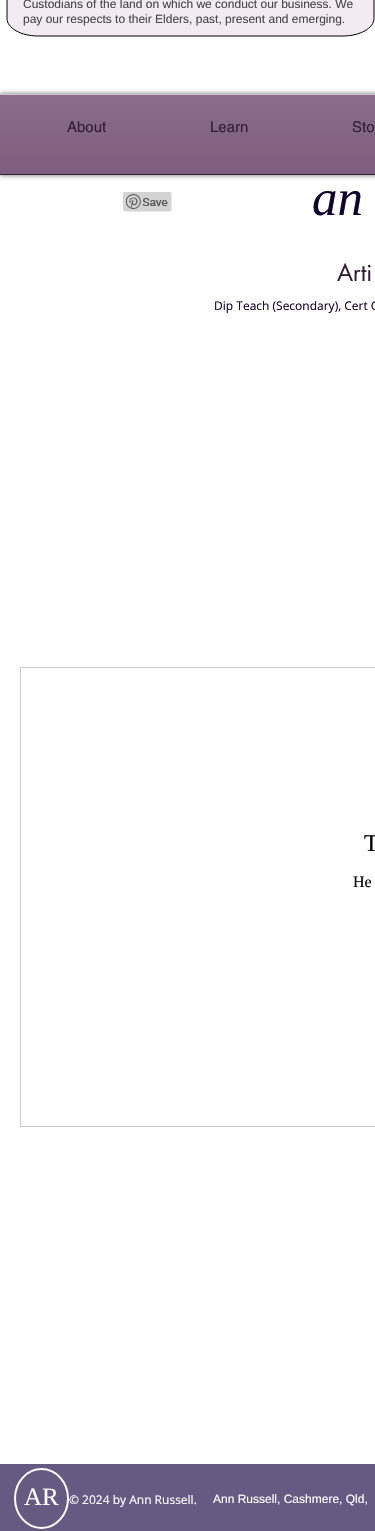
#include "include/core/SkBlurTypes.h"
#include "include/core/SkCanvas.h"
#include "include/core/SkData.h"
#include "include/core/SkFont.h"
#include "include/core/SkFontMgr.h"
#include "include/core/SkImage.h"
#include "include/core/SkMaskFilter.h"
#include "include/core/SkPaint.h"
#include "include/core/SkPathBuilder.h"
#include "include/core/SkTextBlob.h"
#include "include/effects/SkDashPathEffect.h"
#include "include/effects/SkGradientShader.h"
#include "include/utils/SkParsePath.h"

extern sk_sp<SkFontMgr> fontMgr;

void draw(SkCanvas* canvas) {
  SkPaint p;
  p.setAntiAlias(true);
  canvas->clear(SK_ColorWHITE);
  p.setColor(SkColorSetRGB(242, 235, 242));
  canvas->drawPath(SkPathBuilder().moveTo(343, 36).lineTo(38, 36).cubicTo(21, 36, 7, 28, 7, 19).lineTo(7, -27).cubicTo(7, -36, 21, -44, 38, -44).lineTo(343, -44).cubicTo(360, -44, 374, -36, 374, -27).lineTo(374, 19).cubicTo(374, 28, 360, 36, 343, 36).close().detach(), p);
  p.setStyle(SkPaint::kStroke_Style);
  p.setStrokeWidth(1);
  p.setColor(SK_ColorBLACK);
  canvas->drawPath(SkPathBuilder().moveTo(343, 36).lineTo(38, 36).cubicTo(21, 36, 7, 28, 7, 18.5f).lineTo(7, -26.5f).cubicTo(7, -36, 21, -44, 38, -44).lineTo(343, -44).cubicTo(360, -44, 374, -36, 374, -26.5f).lineTo(374, 18.5f).cubicTo(374, 28, 360, 36, 343, 36).close().detach(), p);
  p.setStyle(SkPaint::kFill_Style);
  p.setColor(SkColorSetARGB(153, 0, 0, 0));
  p.setMaskFilter(SkMaskFilter::MakeBlur(kNormal_SkBlurStyle, 2.5f));
  canvas->drawRect(SkRect::MakeLTRB(0, 94, 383, 175), p);
  p.setMaskFilter(nullptr);
  p.setColor(SkColorSetRGB(98, 57, 97));
  canvas->drawRect(SkRect::MakeLTRB(0, 95, 375, 174), p);
  canvas->drawImageRect(SkImages::DeferredFromEncodedData(SkData::MakeFromFileName("images/1.png")), SkRect::MakeLTRB(0, 95, 375, 174), SkSamplingOptions());
  p.setColor(SkColorSetRGB(50, 37, 50));
  canvas->drawRect(SkRect::MakeLTRB(0, 174, 375, 175), p);
  p.setColor(SkColorSetRGB(208, 196, 208));
  canvas->drawRect(SkRect::MakeLTRB(0, 94, 375, 95), p);
  canvas->drawImageRect(SkImages::DeferredFromEncodedData(SkData::MakeFromFileName("images/2.png")), SkRect::MakeLTRB(123, 192, 172, 212), SkSamplingOptions());
  p.setStyle(SkPaint::kStroke_Style);
  p.setColor(SkColorSetRGB(204, 204, 204));
  canvas->drawRect(SkRect::MakeLTRB(20.5f, 667.5f, 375.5f, 1126.5f), p);
  p.setStyle(SkPaint::kFill_Style);
  p.setColor(SkColorSetRGB(102, 90, 130));
  canvas->drawRect(SkRect::MakeLTRB(0, 1464, 375, 1531), p);
  p.setStyle(SkPaint::kStroke_Style);
  p.setStrokeWidth(2);
  p.setColor(SK_ColorWHITE);
  canvas->drawPath(SkPathBuilder().moveTo(41.5f, 1469).cubicTo(56, 1469, 68, 1482, 68, 1498.5f).cubicTo(68, 1515, 56, 1528, 41.5f, 1528).cubicTo(27, 1528, 15, 1515, 15, 1498.5f).cubicTo(15, 1482, 27, 1469, 41.5f, 1469).close().detach(), p);
  SkFont font1(fontMgr->matchFamilyStyle("Liberation Sans", SkFontStyle::Normal()), 12);
  font1.setSubpixel(true);
  p.setStyle(SkPaint::kFill_Style);
  p.setColor(SkColorSetRGB(70, 70, 70));
  canvas->drawString("Custodians of the land on which we conduct our business. We", 23, 8, font1, p);
  canvas->drawString("pay our respects to their Elders, past, present and emerging.", 23, 23, font1, p);
  SkFont font2(fontMgr->matchFamilyStyle("helvetica", SkFontStyle::Normal()), 15);
  font2.setSubpixel(true);
  p.setColor(SkColorSetRGB(49, 29, 49));
  canvas->drawString("About", 67, 132, font2, p);
  canvas->drawString("Learn", 210, 132, font2, p);
  canvas->drawString("Sto", 352, 132, font2, p);
  SkFont font3(fontMgr->matchFamilyStyle("Liberation Serif", SkFontStyle::Italic()), 51);
  font3.setSubpixel(true);
  p.setColor(SkColorSetRGB(17, 4, 46));
  canvas->drawString("an", 312, 215, font3, p);
  SkFont font4(fontMgr->matchFamilyStyle("futura", SkFontStyle::Normal()), 23);
  font4.setSubpixel(true);
  p.setColor(SkColorSetRGB(49, 29, 49));
  canvas->drawString("Arti", 337, 281, font4, p);
  SkFont font5(fontMgr->matchFamilyStyle("Open Sans", SkFontStyle::Normal()), 12);
  font5.setSubpixel(true);
  p.setColor(SkColorSetRGB(17, 4, 46));
  canvas->drawString("Dip Teach (Secondary), Cert G", 214, 310, font5, p);
  SkFont font6(fontMgr->matchFamilyStyle("Liberation Serif", SkFontStyle::Normal()), 24);
  font6.setSubpixel(true);
  p.setColor(SK_ColorBLACK);
  canvas->drawString("T", 364, 851, font6, p);
  SkFont font7(fontMgr->matchFamilyStyle("Liberation Serif", SkFontStyle::Normal()), 16);
  font7.setSubpixel(true);
  canvas->drawString("He", 353, 887, font7, p);
  SkFont font8(fontMgr->matchFamilyStyle("Liberation Serif", SkFontStyle::Normal()), 25);
  font8.setSubpixel(true);
  p.setColor(SK_ColorWHITE);
  canvas->drawString("AR", 24, 1505, font8, p);
  canvas->drawString("© 2024 by Ann Russell.", 69, 1504, font5, p);
  canvas->drawString("Ann Russell, Cashmere, Qld,", 213, 1503, font1, p);
}
